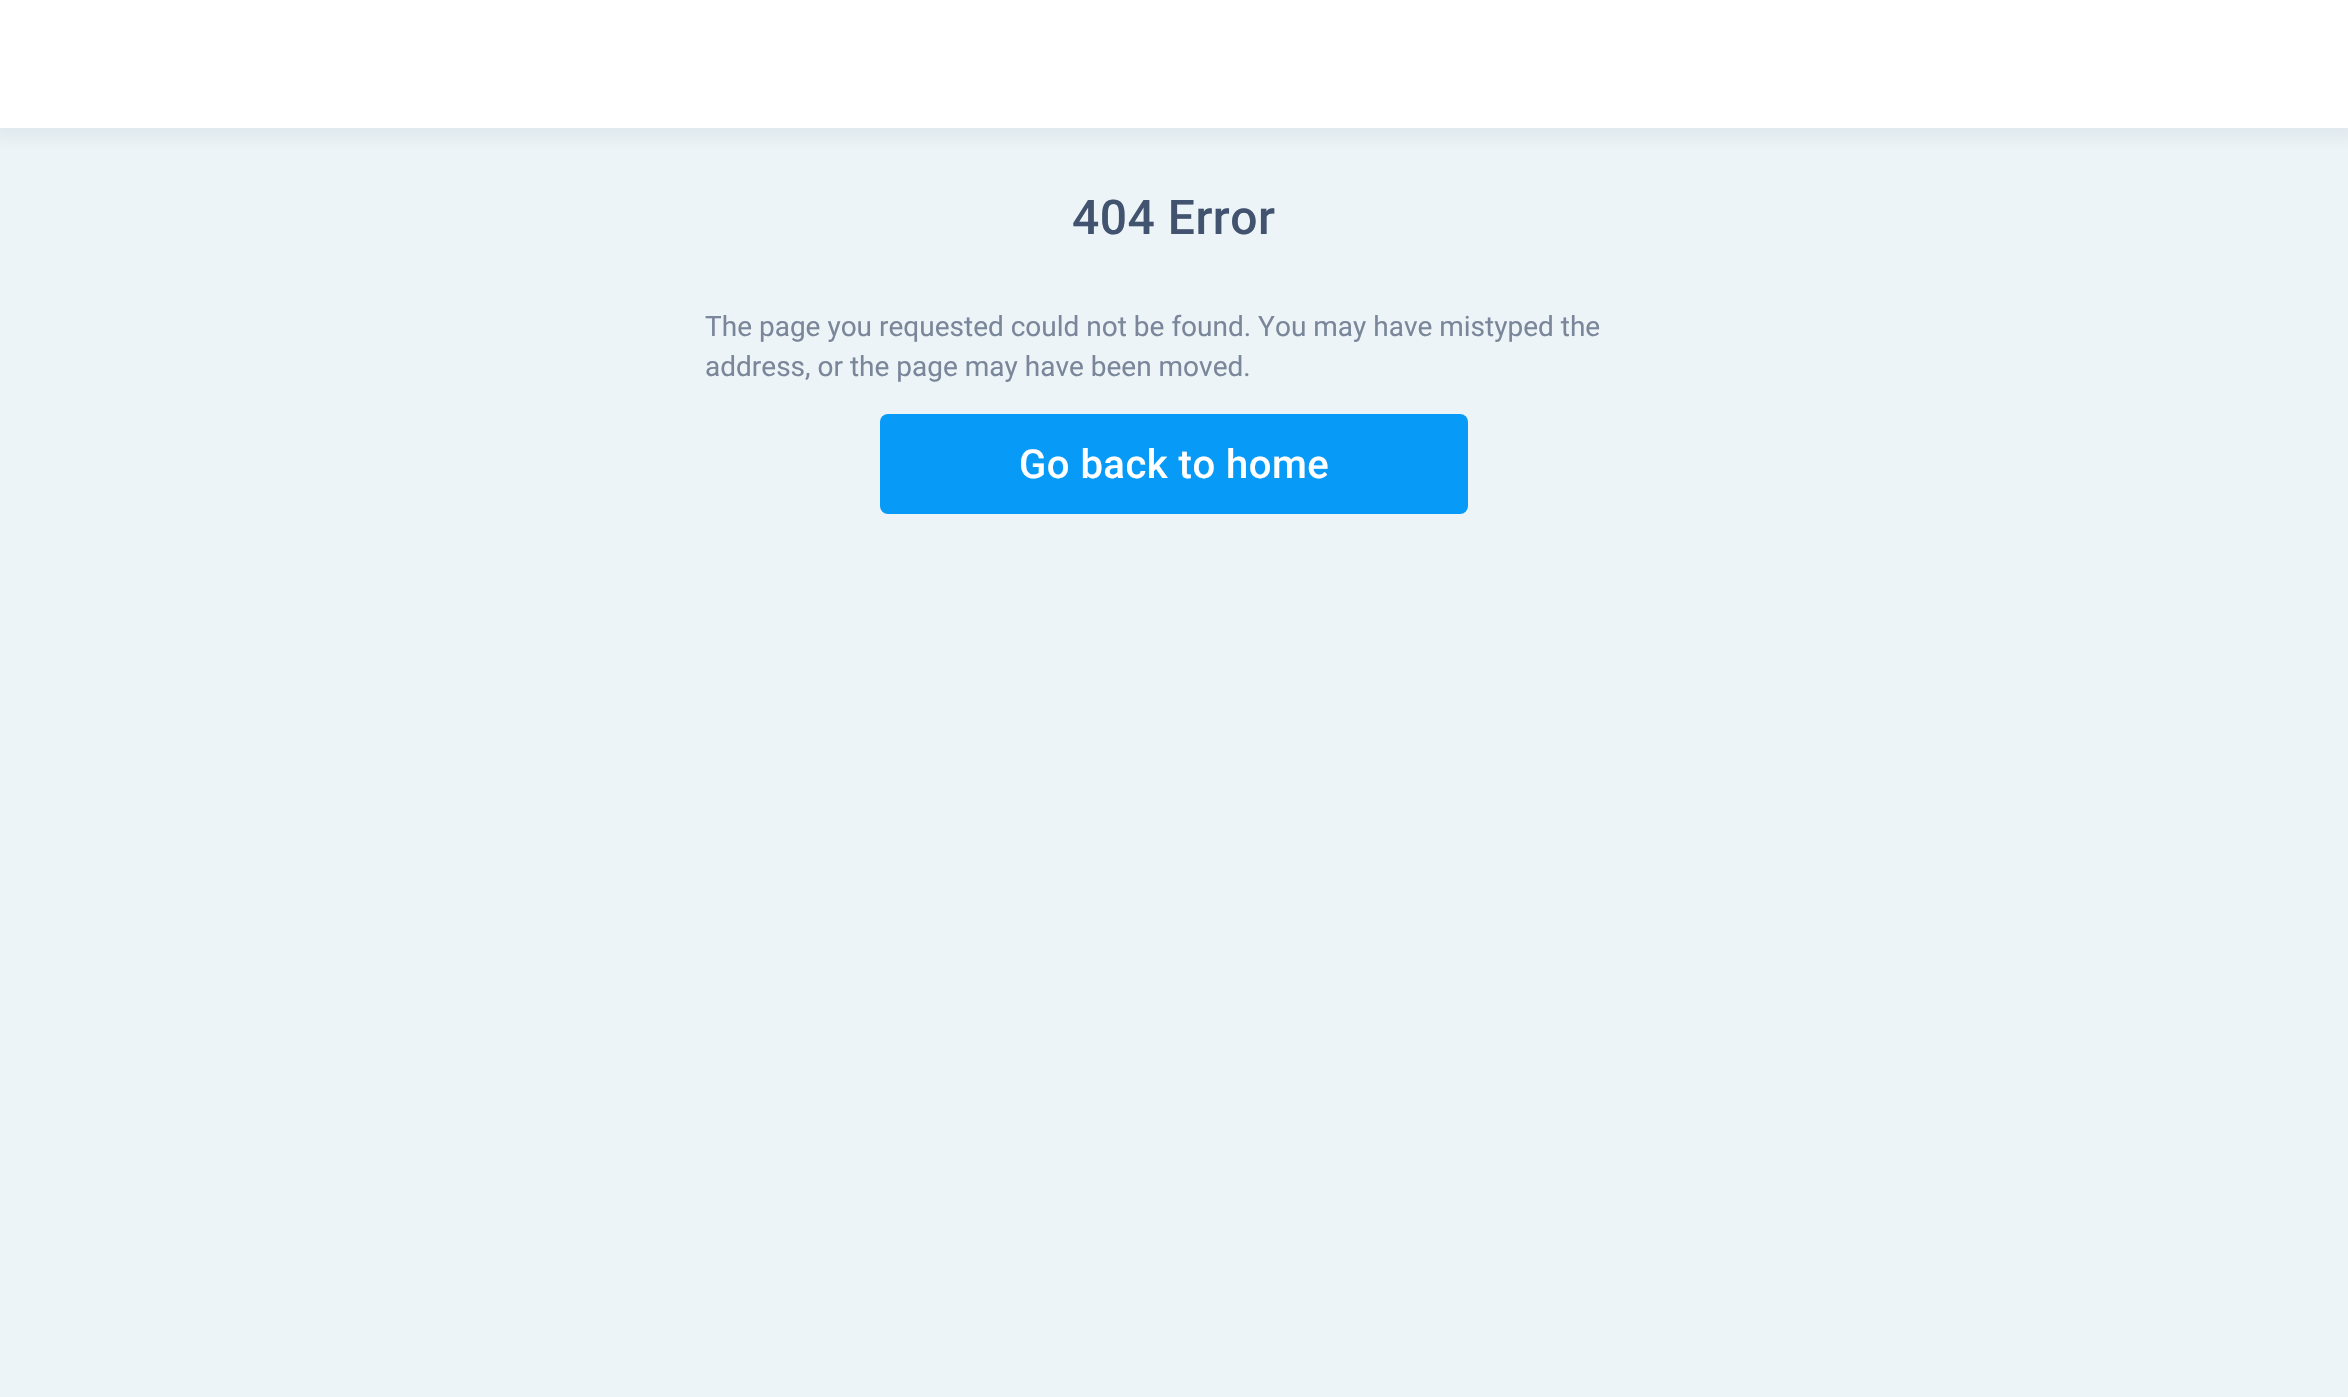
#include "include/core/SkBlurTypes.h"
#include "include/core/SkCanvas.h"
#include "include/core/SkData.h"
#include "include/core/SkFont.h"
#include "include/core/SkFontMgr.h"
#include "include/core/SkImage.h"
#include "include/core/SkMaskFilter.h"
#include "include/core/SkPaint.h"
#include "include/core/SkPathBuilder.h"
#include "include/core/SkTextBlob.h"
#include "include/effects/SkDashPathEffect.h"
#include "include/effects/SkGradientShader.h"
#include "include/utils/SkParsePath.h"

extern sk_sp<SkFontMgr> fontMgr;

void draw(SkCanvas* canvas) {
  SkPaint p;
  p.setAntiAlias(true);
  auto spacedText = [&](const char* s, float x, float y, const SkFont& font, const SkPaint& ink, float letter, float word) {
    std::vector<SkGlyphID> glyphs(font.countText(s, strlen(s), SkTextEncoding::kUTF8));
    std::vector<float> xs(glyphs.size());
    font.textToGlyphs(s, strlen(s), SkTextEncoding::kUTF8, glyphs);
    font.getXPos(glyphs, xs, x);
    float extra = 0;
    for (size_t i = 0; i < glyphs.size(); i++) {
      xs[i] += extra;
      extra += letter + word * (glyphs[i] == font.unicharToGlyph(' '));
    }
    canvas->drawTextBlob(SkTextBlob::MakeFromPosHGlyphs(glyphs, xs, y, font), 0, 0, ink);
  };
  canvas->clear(SkColorSetRGB(237, 244, 247));
  p.setColor(SkColorSetARGB(15, 42, 92, 115));
  p.setMaskFilter(SkMaskFilter::MakeBlur(kNormal_SkBlurStyle, 6));
  canvas->drawRect(SkRect::MakeLTRB(-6, 0, 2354, 140), p);
  p.setMaskFilter(nullptr);
  p.setColor(SK_ColorWHITE);
  canvas->drawRect(SkRect::MakeLTRB(0, 0, 2348, 128), p);
  p.setColor(SkColorSetRGB(8, 154, 247));
  canvas->drawRoundRect(SkRect::MakeLTRB(880, 414, 1468, 514), 8, 8, p);
  SkFont font1(fontMgr->matchFamilyStyle("Roboto", SkFontStyle(500, SkFontStyle::kNormal_Width, SkFontStyle::kUpright_Slant)), 48);
  font1.setSubpixel(true);
  p.setColor(SkColorSetRGB(65, 83, 110));
  spacedText("404 Error", 1072, 234, font1, p, 0.5f, 0);
  SkFont font2(fontMgr->matchFamilyStyle("Roboto", SkFontStyle::Normal()), 28);
  font2.setSubpixel(true);
  p.setColor(SkColorSetRGB(122, 134, 154));
  canvas->drawString("The page you requested could not be found. You may have mistyped the", 705, 336, font2, p);
  canvas->drawString("address, or the page may have been moved.", 705, 376, font2, p);
  SkFont font3(fontMgr->matchFamilyStyle("Roboto", SkFontStyle(500, SkFontStyle::kNormal_Width, SkFontStyle::kUpright_Slant)), 40);
  font3.setSubpixel(true);
  p.setColor(SK_ColorWHITE);
  spacedText("Go back to home", 1019, 478, font3, p, 0.5f, 0);
}
